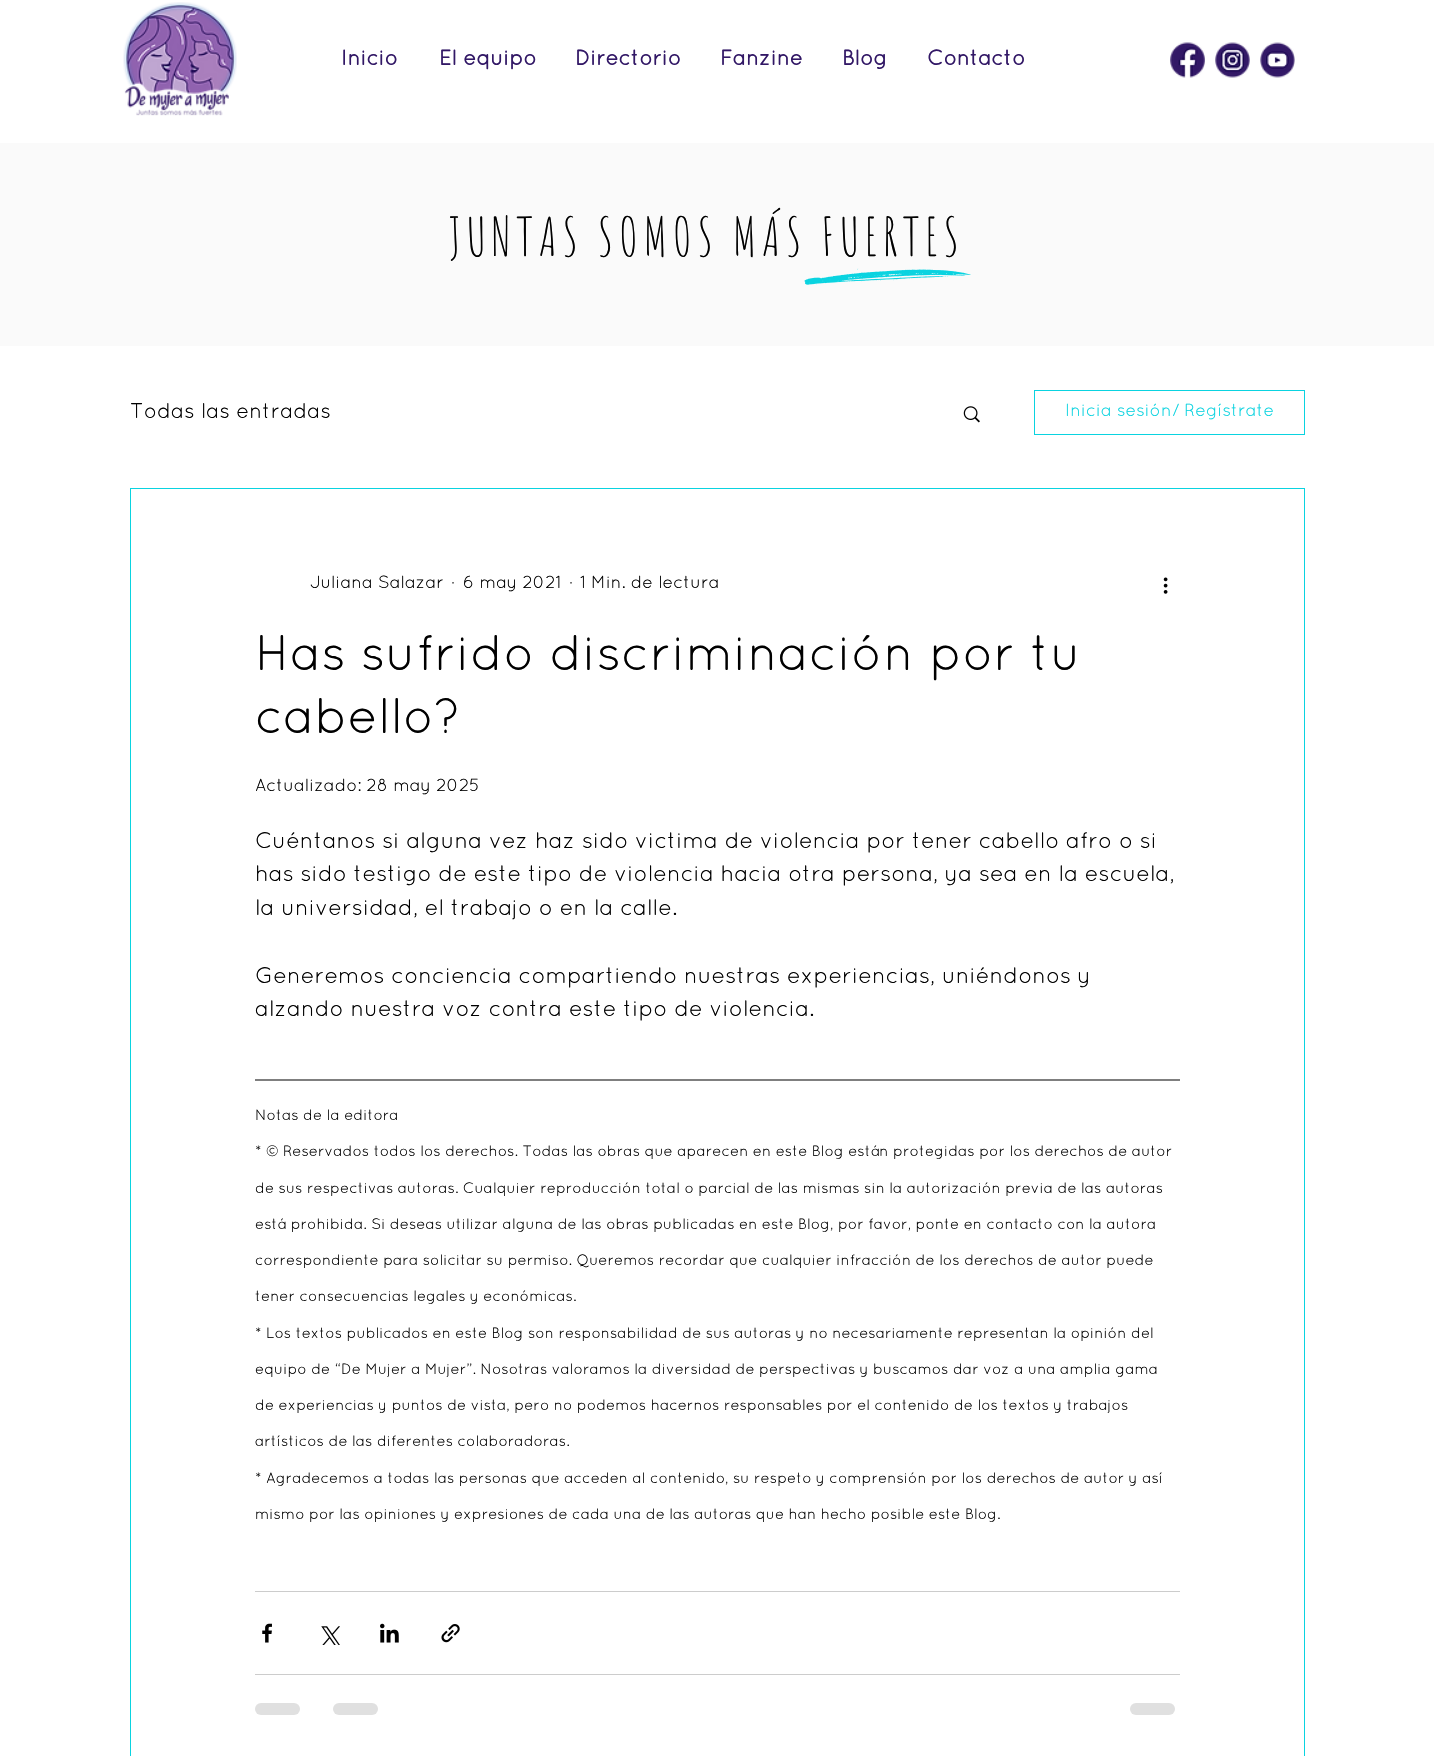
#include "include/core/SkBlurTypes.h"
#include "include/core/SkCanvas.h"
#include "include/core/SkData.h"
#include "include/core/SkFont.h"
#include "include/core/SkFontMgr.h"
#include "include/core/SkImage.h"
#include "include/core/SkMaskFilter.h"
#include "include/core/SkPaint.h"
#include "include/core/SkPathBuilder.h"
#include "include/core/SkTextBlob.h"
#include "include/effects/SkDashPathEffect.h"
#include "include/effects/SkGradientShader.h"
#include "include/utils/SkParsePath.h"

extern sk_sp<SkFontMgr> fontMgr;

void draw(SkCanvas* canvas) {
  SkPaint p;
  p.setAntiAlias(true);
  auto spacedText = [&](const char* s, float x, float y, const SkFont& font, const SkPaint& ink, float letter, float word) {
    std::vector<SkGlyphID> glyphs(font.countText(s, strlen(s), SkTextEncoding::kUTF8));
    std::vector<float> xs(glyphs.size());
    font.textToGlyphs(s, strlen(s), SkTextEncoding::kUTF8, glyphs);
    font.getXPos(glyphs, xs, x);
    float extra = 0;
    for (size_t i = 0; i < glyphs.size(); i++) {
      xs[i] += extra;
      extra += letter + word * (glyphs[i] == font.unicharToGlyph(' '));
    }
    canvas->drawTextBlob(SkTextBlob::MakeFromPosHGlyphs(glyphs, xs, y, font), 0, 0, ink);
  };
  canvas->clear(SK_ColorWHITE);
  canvas->drawImageRect(SkImages::DeferredFromEncodedData(SkData::MakeFromFileName("images/1.png")), SkRect::MakeLTRB(123, 2, 237, 116), SkSamplingOptions());
  canvas->drawImageRect(SkImages::DeferredFromEncodedData(SkData::MakeFromFileName("images/2.png")), SkRect::MakeLTRB(1170, 42, 1205, 78), SkSamplingOptions());
  canvas->drawImageRect(SkImages::DeferredFromEncodedData(SkData::MakeFromFileName("images/3.png")), SkRect::MakeLTRB(1215, 42, 1250, 78), SkSamplingOptions());
  canvas->drawImageRect(SkImages::DeferredFromEncodedData(SkData::MakeFromFileName("images/4.png")), SkRect::MakeLTRB(1260, 42, 1295, 78), SkSamplingOptions());
  p.setColor(SkColorSetRGB(250, 250, 250));
  canvas->drawRect(SkRect::MakeLTRB(0, 143, 1434, 346), p);
  canvas->drawImageRect(SkImages::DeferredFromEncodedData(SkData::MakeFromFileName("images/5.png")), SkRect::MakeLTRB(804, 268, 971, 285), SkSamplingOptions());
  canvas->drawImageRect(SkImages::DeferredFromEncodedData(SkData::MakeFromFileName("images/6.png")), SkRect::MakeLTRB(963, 406, 980, 423), SkSamplingOptions());
  p.setStyle(SkPaint::kStroke_Style);
  p.setStrokeWidth(1);
  p.setColor(SkColorSetRGB(10, 211, 224));
  canvas->drawRect(SkRect::MakeLTRB(1034.5f, 390.5f, 1304.5f, 434.5f), p);
  canvas->drawRect(SkRect::MakeLTRB(130.5f, 488.5f, 1304.5f, 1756.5f), p);
  canvas->drawImageRect(SkImages::DeferredFromEncodedData(SkData::MakeFromFileName("images/7.png")), SkRect::MakeLTRB(1163, 577, 1168, 594), SkSamplingOptions());
  p.setStrokeWidth(1.2f);
  p.setColor(SK_ColorBLACK);
  canvas->drawPath(SkPathBuilder().moveTo(255, 1080).lineTo(1180, 1080).detach(), p);
  p.setStyle(SkPaint::kFill_Style);
  p.setColor(SkColorSetRGB(204, 204, 204));
  canvas->drawRect(SkRect::MakeLTRB(255, 1591, 1180, 1592), p);
  canvas->drawImageRect(SkImages::DeferredFromEncodedData(SkData::MakeFromFileName("images/8.png")), SkRect::MakeLTRB(262, 1623, 272, 1643), SkSamplingOptions());
  canvas->drawImageRect(SkImages::DeferredFromEncodedData(SkData::MakeFromFileName("images/9.png")), SkRect::MakeLTRB(321, 1626, 340, 1645), SkSamplingOptions());
  canvas->drawImageRect(SkImages::DeferredFromEncodedData(SkData::MakeFromFileName("images/10.png")), SkRect::MakeLTRB(380, 1623, 399, 1643), SkSamplingOptions());
  canvas->drawImageRect(SkImages::DeferredFromEncodedData(SkData::MakeFromFileName("images/11.png")), SkRect::MakeLTRB(441, 1624, 460, 1643), SkSamplingOptions());
  canvas->drawRect(SkRect::MakeLTRB(255, 1674, 1180, 1675), p);
  p.setColor(SkColorSetRGB(224, 224, 224));
  canvas->drawRoundRect(SkRect::MakeLTRB(255, 1703, 300, 1715), 6, 6, p);
  canvas->drawRoundRect(SkRect::MakeLTRB(333, 1703, 378, 1715), 6, 6, p);
  canvas->drawRoundRect(SkRect::MakeLTRB(1130, 1703, 1175, 1715), 6, 6, p);
  SkFont font1(fontMgr->matchFamilyStyle("Quicksand", SkFontStyle::Bold()), 21.25f);
  font1.setSubpixel(true);
  p.setColor(SkColorSetRGB(50, 24, 102));
  canvas->drawString("Inicio", 341, 65, font1, p);
  canvas->drawString("El equipo", 439, 65, font1, p);
  canvas->drawString("Directorio", 575, 65, font1, p);
  canvas->drawString("Fanzine", 720, 65, font1, p);
  canvas->drawString("Blog", 842, 65, font1, p);
  canvas->drawString("Contacto", 927, 65, font1, p);
  SkFont font2(fontMgr->matchFamilyStyle("Amatic SC", SkFontStyle::Normal()), 52.5f);
  font2.setSubpixel(true);
  p.setColor(SK_ColorBLACK);
  spacedText("JUNTAS SOMOS MÁS FUERTES", 449, 256, font2, p, 5.25f, 0);
  SkFont font3(fontMgr->matchFamilyStyle("Quicksand", SkFontStyle::Normal()), 21.25f);
  font3.setSubpixel(true);
  canvas->drawString("Todas las entradas", 130, 418, font3, p);
  SkFont font4(fontMgr->matchFamilyStyle("Quicksand", SkFontStyle::Normal()), 17.5f);
  font4.setSubpixel(true);
  p.setColor(SkColorSetRGB(10, 211, 224));
  canvas->drawString("Inicia sesión/ Regístrate", 1065, 416, font4, p);
  p.setColor(SK_ColorBLACK);
  canvas->drawString("Juliana Salazar", 310, 588, font4, p);
  canvas->drawString("·", 451, 588, font4, p);
  canvas->drawString("6 may 2021", 463, 588, font4, p);
  canvas->drawString("·", 569, 588, font4, p);
  canvas->drawString("1 Min. de lectura", 580, 588, font4, p);
  SkFont font5(fontMgr->matchFamilyStyle("Quicksand", SkFontStyle::Normal()), 50);
  font5.setSubpixel(true);
  canvas->drawString("Has sufrido discriminación por tu", 255, 670, font5, p);
  canvas->drawString("cabello?", 255, 733, font5, p);
  canvas->drawString("Actualizado: 28 may 2025", 255, 791, font4, p);
  SkFont font6(fontMgr->matchFamilyStyle("Quicksand", SkFontStyle::Normal()), 22.5f);
  font6.setSubpixel(true);
  canvas->drawString("Cuéntanos si alguna vez haz sido victima de violencia por tener cabello afro o si", 255, 848, font6, p);
  canvas->drawString("has sido testigo de este tipo de violencia hacia otra persona, ya sea en la escuela,", 255, 881, font6, p);
  canvas->drawString("la universidad, el trabajo o en la calle.", 255, 915, font6, p);
  canvas->drawString("Generemos conciencia compartiendo nuestras experiencias, uniéndonos y", 255, 983, font6, p);
  canvas->drawString("alzando nuestra voz contra este tipo de violencia.", 255, 1016, font6, p);
  SkFont font7(fontMgr->matchFamilyStyle("Quicksand", SkFontStyle::Normal()), 15);
  font7.setSubpixel(true);
  canvas->drawString("Notas de la editora", 255, 1120, font7, p);
  canvas->drawString("* © Reservados todos los derechos. Todas las obras que aparecen en este Blog están protegidas por los derechos de autor", 255, 1156, font7, p);
  canvas->drawString("de sus respectivas autoras. Cualquier reproducción total o parcial de las mismas sin la autorización previa de las autoras", 255, 1193, font7, p);
  canvas->drawString("está prohibida. Si deseas utilizar alguna de las obras publicadas en este Blog, por favor, ponte en contacto con la autora", 255, 1229, font7, p);
  canvas->drawString("correspondiente para solicitar su permiso. Queremos recordar que cualquier infracción de los derechos de autor puede", 255, 1265, font7, p);
  canvas->drawString("tener consecuencias legales y económicas.", 255, 1301, font7, p);
  canvas->drawString("* Los textos publicados en este Blog son responsabilidad de sus autoras y no necesariamente representan la opinión del", 255, 1338, font7, p);
  canvas->drawString("equipo de “De Mujer a Mujer”. Nosotras valoramos la diversidad de perspectivas y buscamos dar voz a una amplia gama", 255, 1374, font7, p);
  canvas->drawString("de experiencias y puntos de vista, pero no podemos hacernos responsables por el contenido de los textos y trabajos", 255, 1410, font7, p);
  canvas->drawString("artísticos de las diferentes colaboradoras.", 255, 1446, font7, p);
  canvas->drawString("* Agradecemos a todas las personas que acceden al contenido, su respeto y comprensión por los derechos de autor y así", 255, 1483, font7, p);
  canvas->drawString("mismo por las opiniones y expresiones de cada una de las autoras que han hecho posible este Blog.", 255, 1519, font7, p);
}
